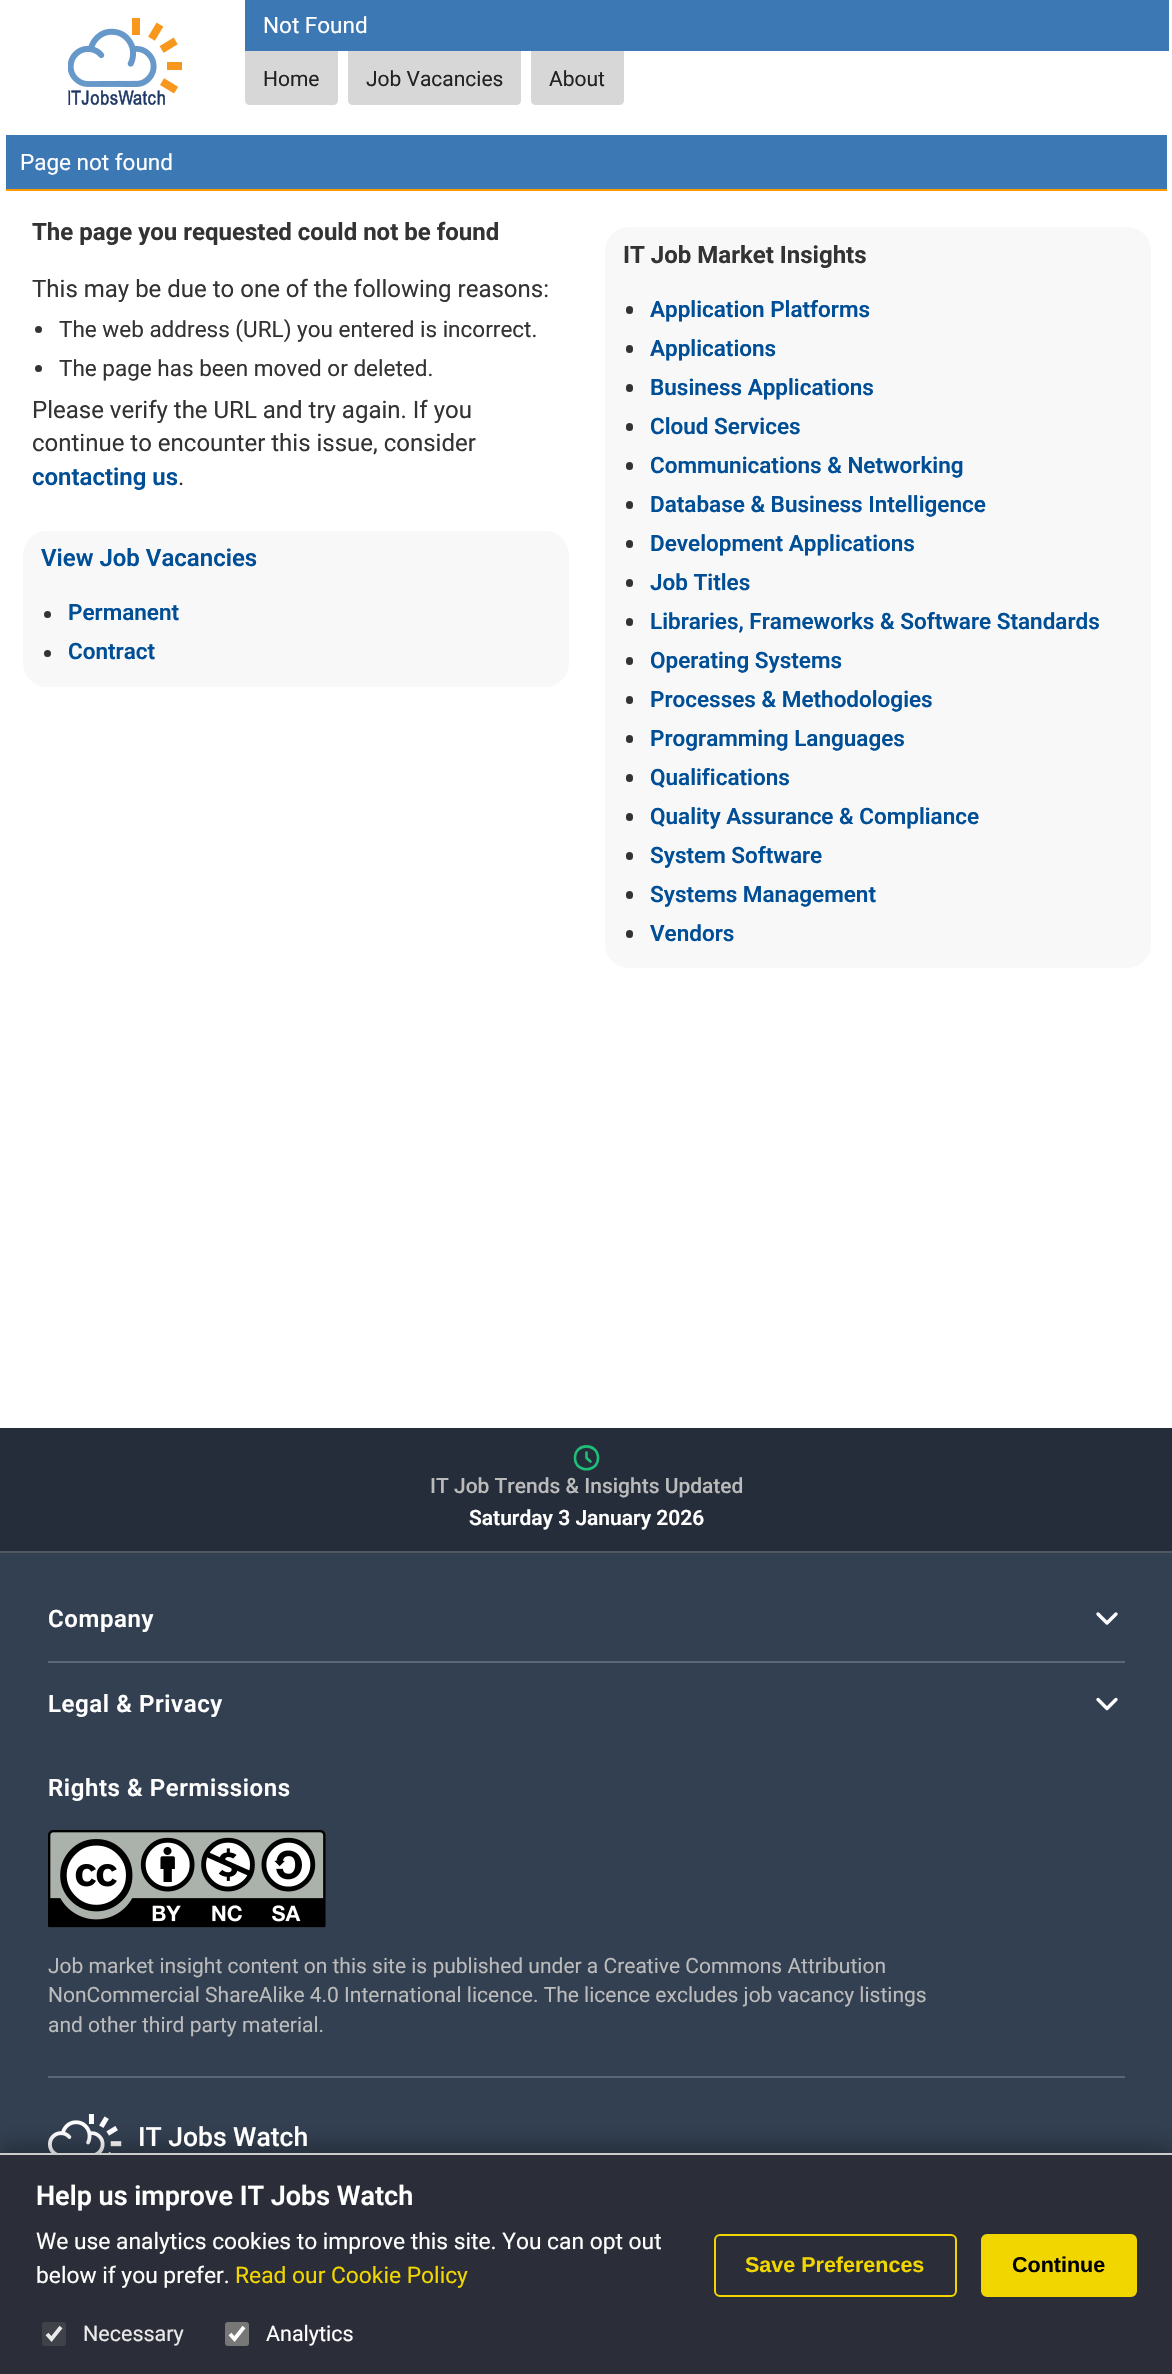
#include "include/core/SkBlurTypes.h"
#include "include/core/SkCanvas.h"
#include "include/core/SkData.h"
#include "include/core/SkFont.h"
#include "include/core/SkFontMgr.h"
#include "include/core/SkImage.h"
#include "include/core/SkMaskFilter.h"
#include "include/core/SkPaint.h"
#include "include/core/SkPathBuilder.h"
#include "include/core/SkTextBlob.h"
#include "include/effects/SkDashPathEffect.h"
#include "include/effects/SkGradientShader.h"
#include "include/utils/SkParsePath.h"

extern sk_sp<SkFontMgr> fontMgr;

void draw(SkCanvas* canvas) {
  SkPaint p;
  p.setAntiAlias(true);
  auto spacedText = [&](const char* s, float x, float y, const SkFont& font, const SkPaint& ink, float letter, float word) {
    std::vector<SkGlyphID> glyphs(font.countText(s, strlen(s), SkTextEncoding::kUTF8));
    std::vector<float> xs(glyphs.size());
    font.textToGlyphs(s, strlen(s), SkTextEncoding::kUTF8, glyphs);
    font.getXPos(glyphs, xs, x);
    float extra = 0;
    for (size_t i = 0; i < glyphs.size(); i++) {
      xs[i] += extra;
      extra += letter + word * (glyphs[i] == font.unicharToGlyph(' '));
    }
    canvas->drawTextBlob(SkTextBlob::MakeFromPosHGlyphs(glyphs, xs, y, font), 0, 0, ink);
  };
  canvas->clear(SK_ColorWHITE);
  canvas->drawImageRect(SkImages::DeferredFromEncodedData(SkData::MakeFromFileName("images/1.png")), SkRect::MakeLTRB(68, 18, 182, 105), SkSamplingOptions());
  p.setColor(SkColorSetRGB(60, 120, 180));
  canvas->drawRect(SkRect::MakeLTRB(245, 0, 1169, 51), p);
  p.setColor(SkColorSetRGB(215, 215, 215));
  canvas->drawPath(SkPathBuilder().moveTo(245, 51).lineTo(338, 51).lineTo(338, 100).cubicTo(338, 103, 336, 105, 333, 105).lineTo(250, 105).cubicTo(247, 105, 245, 103, 245, 100).close().detach(), p);
  canvas->drawPath(SkPathBuilder().moveTo(348, 51).lineTo(521, 51).lineTo(521, 100).cubicTo(521, 103, 519, 105, 516, 105).lineTo(353, 105).cubicTo(350, 105, 348, 103, 348, 100).close().detach(), p);
  canvas->drawPath(SkPathBuilder().moveTo(531, 51).lineTo(624, 51).lineTo(624, 100).cubicTo(624, 103, 622, 105, 619, 105).lineTo(536, 105).cubicTo(533, 105, 531, 103, 531, 100).close().detach(), p);
  p.setColor(SkColorSetRGB(60, 120, 180));
  canvas->drawRect(SkRect::MakeLTRB(6, 135, 1167, 189), p);
  p.setColor(SkColorSetRGB(255, 153, 0));
  canvas->drawRect(SkRect::MakeLTRB(6, 189, 1167, 191), p);
  p.setColor(SkColorSetRGB(51, 51, 51));
  canvas->drawCircle(38.5f, 329.5f, 3.5f, p);
  canvas->drawCircle(38.5f, 368.5f, 3.5f, p);
  p.setColor(SkColorSetRGB(248, 248, 248));
  canvas->drawRoundRect(SkRect::MakeLTRB(23, 531, 569, 687), 24, 24, p);
  p.setColor(SkColorSetRGB(51, 51, 51));
  canvas->drawCircle(47.5f, 614.5f, 3.5f, p);
  canvas->drawCircle(47.5f, 653.5f, 3.5f, p);
  p.setColor(SkColorSetRGB(248, 248, 248));
  canvas->drawRoundRect(SkRect::MakeLTRB(605, 227, 1151, 968), 24, 24, p);
  p.setColor(SkColorSetRGB(51, 51, 51));
  canvas->drawRoundRect(SkRect::MakeLTRB(626, 306, 633, 314), 3.5f, 3.5f, p);
  canvas->drawRoundRect(SkRect::MakeLTRB(626, 345, 633, 353), 3.5f, 3.5f, p);
  canvas->drawRoundRect(SkRect::MakeLTRB(626, 384, 633, 392), 3.5f, 3.5f, p);
  canvas->drawRoundRect(SkRect::MakeLTRB(626, 423, 633, 431), 3.5f, 3.5f, p);
  canvas->drawRoundRect(SkRect::MakeLTRB(626, 462, 633, 470), 3.5f, 3.5f, p);
  canvas->drawRoundRect(SkRect::MakeLTRB(626, 501, 633, 509), 3.5f, 3.5f, p);
  canvas->drawRoundRect(SkRect::MakeLTRB(626, 540, 633, 548), 3.5f, 3.5f, p);
  canvas->drawRoundRect(SkRect::MakeLTRB(626, 579, 633, 587), 3.5f, 3.5f, p);
  canvas->drawRoundRect(SkRect::MakeLTRB(626, 618, 633, 626), 3.5f, 3.5f, p);
  canvas->drawRoundRect(SkRect::MakeLTRB(626, 657, 633, 665), 3.5f, 3.5f, p);
  canvas->drawRoundRect(SkRect::MakeLTRB(626, 696, 633, 704), 3.5f, 3.5f, p);
  canvas->drawRoundRect(SkRect::MakeLTRB(626, 735, 633, 743), 3.5f, 3.5f, p);
  canvas->drawRoundRect(SkRect::MakeLTRB(626, 774, 633, 782), 3.5f, 3.5f, p);
  canvas->drawRoundRect(SkRect::MakeLTRB(626, 813, 633, 821), 3.5f, 3.5f, p);
  canvas->drawRoundRect(SkRect::MakeLTRB(626, 852, 633, 860), 3.5f, 3.5f, p);
  canvas->drawRoundRect(SkRect::MakeLTRB(626, 891, 633, 899), 3.5f, 3.5f, p);
  canvas->drawRoundRect(SkRect::MakeLTRB(626, 930, 633, 938), 3.5f, 3.5f, p);
  p.setColor(SkColorSetRGB(51, 64, 81));
  canvas->drawRect(SkRect::MakeLTRB(0, 1553, 1172, 2153), p);
  p.setColor(SkColorSetRGB(36, 45, 57));
  canvas->drawRect(SkRect::MakeLTRB(0, 1428, 1172, 1551), p);
  p.setColor(SkColorSetRGB(80, 87, 97));
  canvas->drawRect(SkRect::MakeLTRB(0, 1551, 1172, 1553), p);
  p.setStyle(SkPaint::kStroke_Style);
  p.setStrokeWidth(2.6f);
  p.setStrokeCap(SkPaint::kRound_Cap);
  p.setStrokeJoin(SkPaint::kRound_Join);
  p.setColor(SkColorSetRGB(31, 190, 121));
  canvas->drawPath(SkPathBuilder().moveTo(586.5f, 1452.5f).lineTo(586.5f, 1458).lineTo(590.5f, 1461.5f).moveTo(598, 1458).cubicTo(598, 1473, 575, 1473, 575, 1458).cubicTo(575, 1442.5f, 598, 1442.5f, 598, 1458).detach(), p);
  p.setStyle(SkPaint::kFill_Style);
  p.setColor(SkColorSetRGB(92, 102, 116));
  canvas->drawRect(SkRect::MakeLTRB(48, 1661, 1125, 1663), p);
  p.setStyle(SkPaint::kStroke_Style);
  p.setStrokeWidth(3.4f);
  p.setColor(SkColorSetRGB(254, 254, 254));
  canvas->drawPath(SkPathBuilder().moveTo(1098, 1614).lineTo(1107, 1623).lineTo(1116, 1614).detach(), p);
  canvas->drawPath(SkPathBuilder().moveTo(1098, 1699.5f).lineTo(1107, 1708.5f).lineTo(1116, 1699.5f).detach(), p);
  canvas->drawImageRect(SkImages::DeferredFromEncodedData(SkData::MakeFromFileName("images/2.png")), SkRect::MakeLTRB(48, 1830, 326, 1928), SkSamplingOptions());
  p.setStyle(SkPaint::kFill_Style);
  p.setColor(SkColorSetRGB(92, 102, 116));
  canvas->drawRect(SkRect::MakeLTRB(48, 2076, 1125, 2078), p);
  canvas->drawImageRect(SkImages::DeferredFromEncodedData(SkData::MakeFromFileName("images/3.png")), SkRect::MakeLTRB(48, 2114, 122, 2153), SkSamplingOptions());
  p.setColor(SkColorSetARGB(64, 0, 0, 0));
  p.setMaskFilter(SkMaskFilter::MakeBlur(kNormal_SkBlurStyle, 9));
  canvas->drawRect(SkRect::MakeLTRB(0, 2144, 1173, 2366), p);
  p.setMaskFilter(nullptr);
  p.setColor(SkColorSetRGB(43, 46, 56));
  canvas->drawRect(SkRect::MakeLTRB(0, 2155, 1172, 2374), p);
  p.setColor(SkColorSetRGB(204, 204, 204));
  canvas->drawRect(SkRect::MakeLTRB(0, 2153, 1172, 2155), p);
  p.setColor(SkColorSetRGB(63, 66, 73));
  canvas->drawRoundRect(SkRect::MakeLTRB(42, 2322, 66, 2346), 3, 3, p);
  p.setStyle(SkPaint::kStroke_Style);
  p.setStrokeWidth(3.8f);
  p.setStrokeCap(SkPaint::kButt_Cap);
  p.setStrokeJoin(SkPaint::kMiter_Join);
  p.setColor(SkColorSetRGB(234, 234, 235));
  canvas->drawPath(SkPathBuilder().moveTo(47, 2334).lineTo(51.5f, 2339).lineTo(61, 2327).detach(), p);
  p.setStyle(SkPaint::kFill_Style);
  p.setColor(SkColorSetRGB(119, 119, 119));
  canvas->drawRoundRect(SkRect::MakeLTRB(225, 2322, 249, 2346), 3, 3, p);
  p.setStyle(SkPaint::kStroke_Style);
  p.setColor(SK_ColorWHITE);
  canvas->drawPath(SkPathBuilder().moveTo(230, 2334).lineTo(234.5f, 2339).lineTo(244, 2327).detach(), p);
  p.setStrokeWidth(2);
  p.setColor(SkColorSetRGB(241, 214, 0));
  canvas->drawRoundRect(SkRect::MakeLTRB(715, 2235, 956, 2296), 5, 5, p);
  p.setStyle(SkPaint::kFill_Style);
  canvas->drawRoundRect(SkRect::MakeLTRB(982, 2235, 1136, 2296), 5, 5, p);
  p.setStyle(SkPaint::kStroke_Style);
  canvas->drawRoundRect(SkRect::MakeLTRB(982, 2235, 1136, 2296), 5, 5, p);
  SkFont font1(fontMgr->matchFamilyStyle("Roboto", SkFontStyle::Normal()), 22.5f);
  font1.setSubpixel(true);
  p.setStyle(SkPaint::kFill_Style);
  p.setColor(SK_ColorWHITE);
  canvas->drawString("Not Found", 263, 33, font1, p);
  SkFont font2(fontMgr->matchFamilyStyle("Roboto", SkFontStyle::Normal()), 21);
  font2.setSubpixel(true);
  p.setColor(SkColorSetRGB(34, 34, 34));
  canvas->drawString("Home", 263, 86, font2, p);
  canvas->drawString("Job Vacancies", 366, 86, font2, p);
  canvas->drawString("About", 549, 86, font2, p);
  p.setColor(SK_ColorWHITE);
  canvas->drawString("Page not found", 20, 170, font1, p);
  SkFont font3(fontMgr->matchFamilyStyle("Roboto", SkFontStyle::Bold()), 24);
  font3.setSubpixel(true);
  p.setColor(SkColorSetRGB(51, 51, 51));
  canvas->drawString("The page you requested could not be found", 32, 240, font3, p);
  SkFont font4(fontMgr->matchFamilyStyle("Roboto", SkFontStyle::Normal()), 24);
  font4.setSubpixel(true);
  canvas->drawString("This may be due to one of the following reasons:", 32, 297, font4, p);
  canvas->drawString("The web address (URL) you entered is incorrect.", 59, 337, font1, p);
  canvas->drawString("The page has been moved or deleted.", 59, 376, font1, p);
  canvas->drawString("Please verify the URL and try again. If you", 32, 418, font4, p);
  canvas->drawString("continue to encounter this issue, consider", 32, 451, font4, p);
  SkFont font5(fontMgr->matchFamilyStyle("Roboto", SkFontStyle(600, SkFontStyle::kNormal_Width, SkFontStyle::kUpright_Slant)), 24);
  font5.setSubpixel(true);
  p.setColor(SkColorSetRGB(0, 78, 150));
  canvas->drawString("contacting us", 32, 485, font5, p);
  p.setColor(SkColorSetRGB(51, 51, 51));
  canvas->drawString(".", 178, 485, font4, p);
  p.setColor(SkColorSetRGB(0, 78, 150));
  canvas->drawString("View Job Vacancies", 41, 566, font5, p);
  SkFont font6(fontMgr->matchFamilyStyle("Roboto", SkFontStyle(600, SkFontStyle::kNormal_Width, SkFontStyle::kUpright_Slant)), 22.5f);
  font6.setSubpixel(true);
  canvas->drawString("Permanent", 68, 620, font6, p);
  canvas->drawString("Contract", 68, 659, font6, p);
  p.setColor(SkColorSetRGB(51, 51, 51));
  canvas->drawString("IT Job Market Insights", 623, 263, font3, p);
  p.setColor(SkColorSetRGB(0, 78, 150));
  canvas->drawString("Application Platforms", 650, 317, font6, p);
  canvas->drawString("Applications", 650, 356, font6, p);
  canvas->drawString("Business Applications", 650, 395, font6, p);
  canvas->drawString("Cloud Services", 650, 434, font6, p);
  canvas->drawString("Communications & Networking", 650, 473, font6, p);
  canvas->drawString("Database & Business Intelligence", 650, 512, font6, p);
  canvas->drawString("Development Applications", 650, 551, font6, p);
  canvas->drawString("Job Titles", 650, 590, font6, p);
  canvas->drawString("Libraries, Frameworks & Software Standards", 650, 629, font6, p);
  canvas->drawString("Operating Systems", 650, 668, font6, p);
  canvas->drawString("Processes & Methodologies", 650, 707, font6, p);
  canvas->drawString("Programming Languages", 650, 746, font6, p);
  canvas->drawString("Qualifications", 650, 785, font6, p);
  canvas->drawString("Quality Assurance & Compliance", 650, 824, font6, p);
  canvas->drawString("System Software", 650, 863, font6, p);
  canvas->drawString("Systems Management", 650, 902, font6, p);
  canvas->drawString("Vendors", 650, 941, font6, p);
  SkFont font7(fontMgr->matchFamilyStyle("Roboto", SkFontStyle(500, SkFontStyle::kNormal_Width, SkFontStyle::kUpright_Slant)), 21);
  font7.setSubpixel(true);
  p.setColor(SkColorSetRGB(187, 187, 187));
  canvas->drawString("IT Job Trends & Insights Updated", 430, 1493, font7, p);
  SkFont font8(fontMgr->matchFamilyStyle("Roboto", SkFontStyle(600, SkFontStyle::kNormal_Width, SkFontStyle::kUpright_Slant)), 21);
  font8.setSubpixel(true);
  p.setColor(SK_ColorWHITE);
  canvas->drawString("Saturday 3 January 2026", 469, 1525, font8, p);
  spacedText("Company", 48, 1627, font5, p, 0.6f, 0);
  spacedText("Legal & Privacy", 48, 1712, font5, p, 0.6f, 0);
  spacedText("Rights & Permissions", 48, 1796, font5, p, 0.6f, 0);
  p.setColor(SkColorSetRGB(187, 187, 187));
  canvas->drawString("Job market insight content on this site is published under a Creative Commons Attribution", 48, 1973, font2, p);
  canvas->drawString("NonCommercial ShareAlike 4.0 International licence. The licence excludes job vacancy listings", 48, 2002, font2, p);
  canvas->drawString("and other third party material.", 48, 2032, font2, p);
  SkFont font9(fontMgr->matchFamilyStyle("Roboto", SkFontStyle(500, SkFontStyle::kNormal_Width, SkFontStyle::kUpright_Slant)), 26.5f);
  font9.setSubpixel(true);
  p.setColor(SK_ColorWHITE);
  canvas->drawString("IT Jobs Watch", 138, 2146, font9, p);
  SkFont font10(fontMgr->matchFamilyStyle("Roboto", SkFontStyle(600, SkFontStyle::kNormal_Width, SkFontStyle::kUpright_Slant)), 27);
  font10.setSubpixel(true);
  canvas->drawString("Help us improve IT Jobs Watch", 36, 2205, font10, p);
  SkFont font11(fontMgr->matchFamilyStyle("Roboto", SkFontStyle::Normal()), 22.8f);
  font11.setSubpixel(true);
  canvas->drawString("We use analytics cookies to improve this site. You can opt out", 36, 2249, font11, p);
  canvas->drawString("below if you prefer.", 36, 2283, font11, p);
  p.setColor(SkColorSetRGB(241, 214, 0));
  canvas->drawString("Read our Cookie Policy", 235, 2283, font11, p);
  SkFont font12(fontMgr->matchFamilyStyle("Roboto", SkFontStyle::Normal()), 21.5f);
  font12.setSubpixel(true);
  p.setColor(SkColorSetRGB(234, 234, 235));
  canvas->drawString("Necessary", 83, 2341, font12, p);
  p.setColor(SK_ColorWHITE);
  canvas->drawString("Analytics", 266, 2341, font12, p);
  SkFont font13(fontMgr->matchFamilyStyle("Liberation Sans", SkFontStyle::Bold()), 21.5f);
  font13.setSubpixel(true);
  p.setColor(SkColorSetRGB(241, 214, 0));
  canvas->drawString("Save Preferences", 745, 2272, font13, p);
  p.setColor(SK_ColorBLACK);
  canvas->drawString("Continue", 1012, 2272, font13, p);
}
